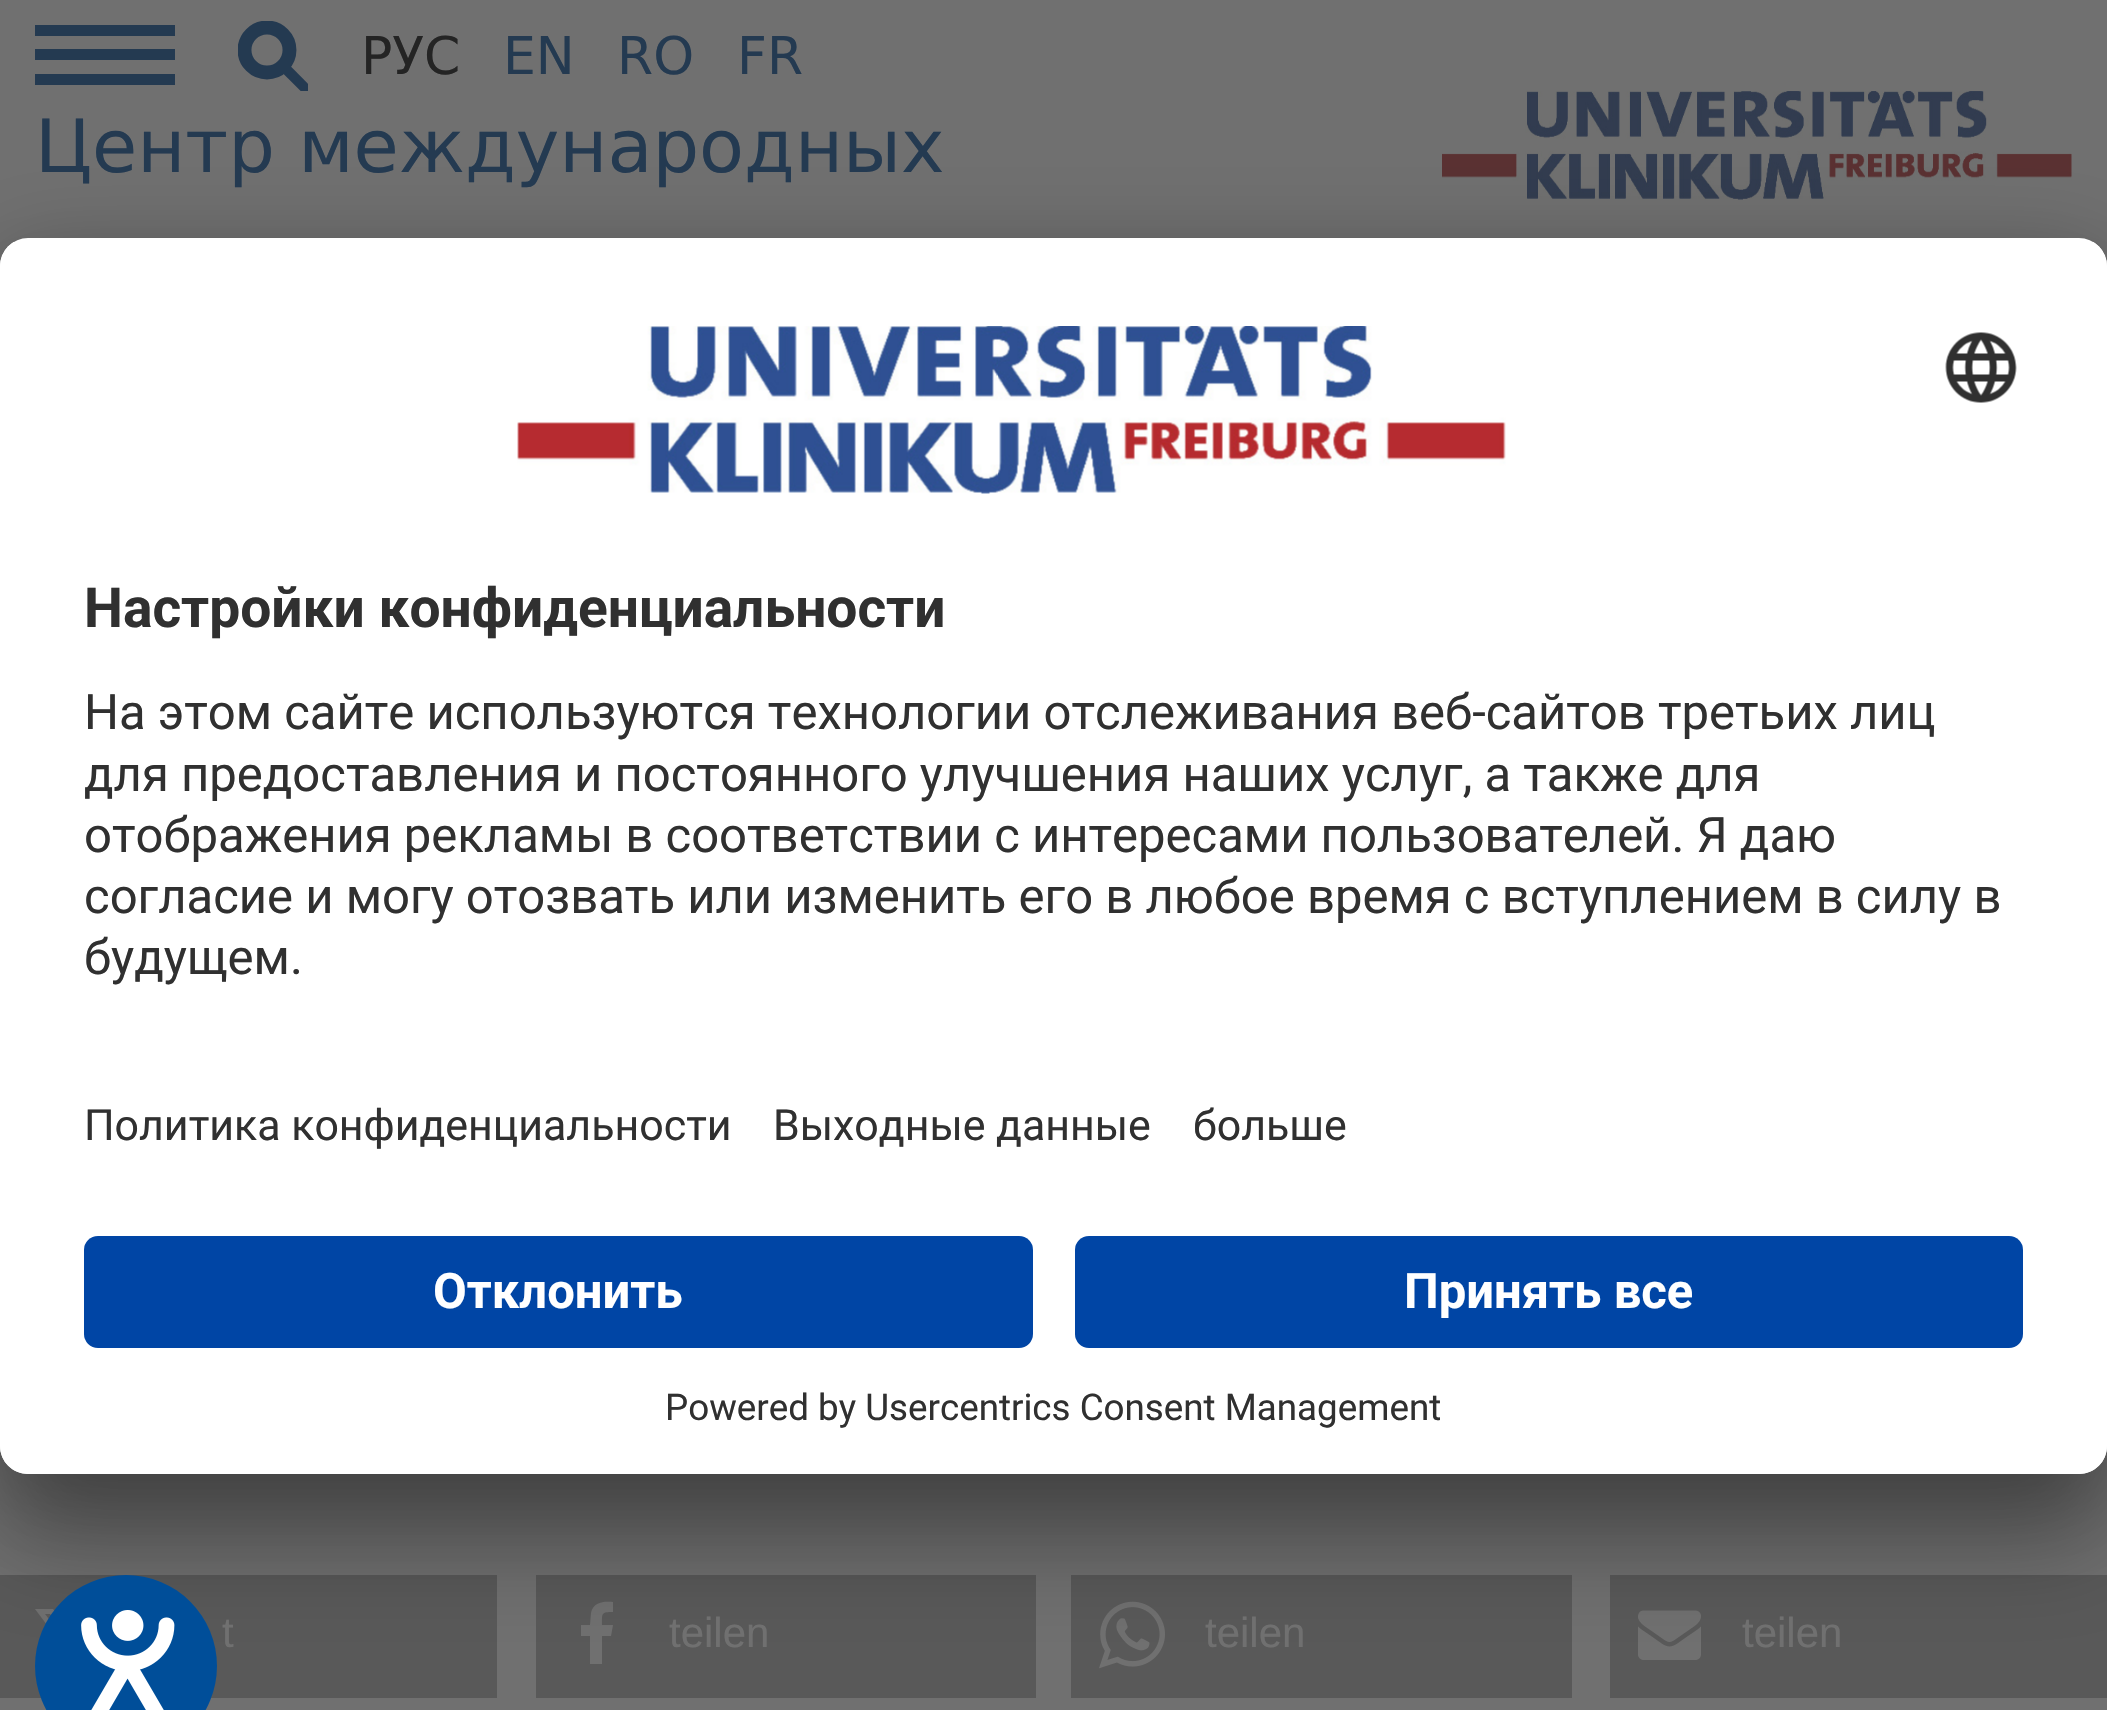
#include "include/core/SkBlurTypes.h"
#include "include/core/SkCanvas.h"
#include "include/core/SkData.h"
#include "include/core/SkFont.h"
#include "include/core/SkFontMgr.h"
#include "include/core/SkImage.h"
#include "include/core/SkMaskFilter.h"
#include "include/core/SkPaint.h"
#include "include/core/SkPathBuilder.h"
#include "include/core/SkTextBlob.h"
#include "include/effects/SkDashPathEffect.h"
#include "include/effects/SkGradientShader.h"
#include "include/utils/SkParsePath.h"

extern sk_sp<SkFontMgr> fontMgr;

void draw(SkCanvas* canvas) {
  SkPaint p;
  p.setAntiAlias(true);
  canvas->clear(SkColorSetRGB(112, 112, 112));
  p.setColor(SkColorSetRGB(36, 58, 81));
  canvas->drawRect(SkRect::MakeLTRB(35, 25, 175, 36), p);
  canvas->drawRect(SkRect::MakeLTRB(35, 49, 175, 60), p);
  canvas->drawRect(SkRect::MakeLTRB(35, 74, 175, 85), p);
  canvas->save();
  canvas->clipRect(SkRect::MakeLTRB(238, 21, 308, 91));
  p.setStyle(SkPaint::kStroke_Style);
  p.setStrokeWidth(13.9f);
  canvas->drawCircle(267, 50, 22.5f, p);
  p.setStrokeWidth(10.4f);
  canvas->drawPath(SkPathBuilder().moveTo(285, 68).lineTo(308, 91).detach(), p);
  canvas->restore();
  canvas->drawImageRect(SkImages::DeferredFromEncodedData(SkData::MakeFromFileName("images/1.png")), SkRect::MakeLTRB(1442, 91, 2072, 200), SkSamplingOptions());
  p.setStyle(SkPaint::kFill_Style);
  p.setColor(SkColorSetRGB(89, 89, 89));
  canvas->drawRect(SkRect::MakeLTRB(0, 1575, 497, 1698), p);
  p.setColor(SkColorSetRGB(112, 112, 112));
  canvas->drawPath(SkPathBuilder().moveTo(79, 1609).lineTo(88, 1609).lineTo(69, 1631).lineTo(91, 1660).lineTo(74, 1660).lineTo(60, 1642).lineTo(45, 1660).lineTo(36, 1660).lineTo(56, 1637).lineTo(35, 1609).lineTo(53, 1609).lineTo(65, 1625).close().moveTo(76, 1655).lineTo(81, 1655).lineTo(50, 1614).lineTo(45, 1614).close().detach(), p);
  p.setColor(SkColorSetRGB(89, 89, 89));
  canvas->drawRect(SkRect::MakeLTRB(536, 1575, 1036, 1698), p);
  p.setColor(SkColorSetRGB(112, 112, 112));
  canvas->drawPath(SkPathBuilder().moveTo(613, 1602).lineTo(613, 1612).cubicTo(601, 1612, 602, 1613, 602, 1625).lineTo(613, 1625).lineTo(611, 1636).lineTo(602, 1636).lineTo(602, 1664).lineTo(590, 1664).lineTo(590, 1636).lineTo(581, 1636).lineTo(581, 1625).lineTo(590, 1625).lineTo(591, 1613).cubicTo(593, 1602, 604, 1601, 613, 1602).close().detach(), p);
  p.setColor(SkColorSetRGB(89, 89, 89));
  canvas->drawRect(SkRect::MakeLTRB(1071, 1575, 1572, 1698), p);
  canvas->drawImageRect(SkImages::DeferredFromEncodedData(SkData::MakeFromFileName("images/2.png")), SkRect::MakeLTRB(1099, 1601, 1165, 1669), SkSamplingOptions());
  canvas->drawRect(SkRect::MakeLTRB(1610, 1575, 2107, 1698), p);
  canvas->drawImageRect(SkImages::DeferredFromEncodedData(SkData::MakeFromFileName("images/3.png")), SkRect::MakeLTRB(1638, 1610, 1701, 1660), SkSamplingOptions());
  p.setColor(SkColorSetARGB(77, 0, 0, 0));
  p.setMaskFilter(SkMaskFilter::MakeBlur(kNormal_SkBlurStyle, 49));
  canvas->drawRoundRect(SkRect::MakeLTRB(0, 308, 2107, 1544), 28, 28, p);
  p.setMaskFilter(nullptr);
  p.setColor(SkColorSetARGB(56, 0, 0, 0));
  p.setMaskFilter(SkMaskFilter::MakeBlur(kNormal_SkBlurStyle, 45.5f));
  canvas->drawRoundRect(SkRect::MakeLTRB(0, 256, 2107, 1491), 28, 28, p);
  p.setMaskFilter(nullptr);
  p.setColor(SK_ColorWHITE);
  canvas->drawRoundRect(SkRect::MakeLTRB(0, 238, 2107, 1474), 28, 28, p);
  canvas->save();
  canvas->clipPath(SkPathBuilder().moveTo(28, 238).lineTo(2079, 238).cubicTo(2094.5f, 238, 2107, 250.5f, 2107, 266).lineTo(2107, 1446).cubicTo(2107, 1461.5f, 2094.5f, 1474, 2079, 1474).lineTo(28, 1474).cubicTo(12.5f, 1474, 0, 1461.5f, 0, 1446).lineTo(0, 266).cubicTo(0, 250.5f, 12.5f, 238, 28, 238).close().detach(), true);
  canvas->clipPath(SkPathBuilder().moveTo(28, 238).lineTo(2079, 238).cubicTo(2094.5f, 238, 2107, 250.5f, 2107, 266).lineTo(2107, 1208).lineTo(0, 1208).lineTo(0, 266).cubicTo(0, 250.5f, 12.5f, 238, 28, 238).close().detach(), true);
  canvas->drawRect(SkRect::MakeLTRB(0, 242, 2107, 1208), p);
  canvas->restore();
  canvas->drawImageRect(SkImages::DeferredFromEncodedData(SkData::MakeFromFileName("images/4.png")), SkRect::MakeLTRB(517, 326, 1506, 494), SkSamplingOptions());
  canvas->drawImageRect(SkImages::DeferredFromEncodedData(SkData::MakeFromFileName("images/5.png")), SkRect::MakeLTRB(1945, 332, 2017, 403), SkSamplingOptions());
  canvas->drawPath(SkPathBuilder().moveTo(0, 1208).lineTo(2107, 1208).lineTo(2107, 1446).cubicTo(2107, 1461.5f, 2094.5f, 1474, 2079, 1474).lineTo(28, 1474).cubicTo(12.5f, 1474, 0, 1461.5f, 0, 1446).close().detach(), p);
  p.setColor(SkColorSetRGB(0, 69, 165));
  canvas->drawRoundRect(SkRect::MakeLTRB(84, 1236, 1033, 1348), 14, 14, p);
  canvas->drawRoundRect(SkRect::MakeLTRB(1075, 1236, 2023, 1348), 14, 14, p);
  p.setColor(SkColorSetRGB(0, 78, 153));
  canvas->drawCircle(126, 1666, 91, p);
  canvas->drawImageRect(SkImages::DeferredFromEncodedData(SkData::MakeFromFileName("images/6.png")), SkRect::MakeLTRB(81, 1610, 175, 1710), SkSamplingOptions());
  SkFont font1(fontMgr->matchFamilyStyle("DejaVu Sans", SkFontStyle::Normal()), 52);
  font1.setSubpixel(true);
  p.setColor(SkColorSetRGB(36, 36, 36));
  canvas->drawString("РУС", 361, 74, font1, p);
  p.setColor(SkColorSetRGB(36, 58, 81));
  canvas->drawString("EN", 503, 74, font1, p);
  canvas->drawString("RO", 617, 74, font1, p);
  canvas->drawString("FR", 737, 74, font1, p);
  SkFont font2(fontMgr->matchFamilyStyle("DejaVu Sans", SkFontStyle::Normal()), 73.5f);
  font2.setSubpixel(true);
  canvas->drawString("Центр международных", 35, 172, font2, p);
  SkFont font3(fontMgr->matchFamilyStyle("Liberation Sans", SkFontStyle::Normal()), 42);
  font3.setSubpixel(true);
  p.setColor(SkColorSetRGB(112, 112, 112));
  canvas->drawString("t", 222, 1647, font3, p);
  canvas->drawString("teilen", 669, 1647, font3, p);
  canvas->drawString("teilen", 1205, 1647, font3, p);
  canvas->drawString("teilen", 1742, 1647, font3, p);
  SkFont font4(fontMgr->matchFamilyStyle("Roboto", SkFontStyle::Bold()), 55.1f);
  font4.setSubpixel(true);
  p.setColor(SkColorSetRGB(48, 48, 48));
  canvas->drawString("Настройки конфиденциальности", 84, 627, font4, p);
  SkFont font5(fontMgr->matchFamilyStyle("Roboto", SkFontStyle::Normal()), 49);
  font5.setSubpixel(true);
  canvas->drawString("На этом сайте используются технологии отслеживания веб-сайтов третьих лиц", 84, 729, font5, p);
  canvas->drawString("для предоставления и постоянного улучшения наших услуг, а также для", 84, 791, font5, p);
  canvas->drawString("отображения рекламы в соответствии с интересами пользователей. Я даю", 84, 852, font5, p);
  canvas->drawString("согласие и могу отозвать или изменить его в любое время с вступлением в силу в", 84, 913, font5, p);
  canvas->drawString("будущем.", 84, 974, font5, p);
  SkFont font6(fontMgr->matchFamilyStyle("Roboto", SkFontStyle::Normal()), 42.9f);
  font6.setSubpixel(true);
  canvas->drawString("Политика конфиденциальности", 84, 1140, font6, p);
  canvas->drawString("Выходные данные", 773, 1140, font6, p);
  canvas->drawString("больше", 1193, 1140, font6, p);
  SkFont font7(fontMgr->matchFamilyStyle("Roboto", SkFontStyle::Bold()), 49);
  font7.setSubpixel(true);
  p.setColor(SK_ColorWHITE);
  canvas->drawString("Отклонить", 433, 1308, font7, p);
  canvas->drawString("Принять все", 1404, 1308, font7, p);
  SkFont font8(fontMgr->matchFamilyStyle("Roboto", SkFontStyle::Normal()), 36.75f);
  font8.setSubpixel(true);
  p.setColor(SkColorSetRGB(48, 48, 48));
  canvas->drawString("Powered by Usercentrics Consent Management", 665, 1420, font8, p);
}
